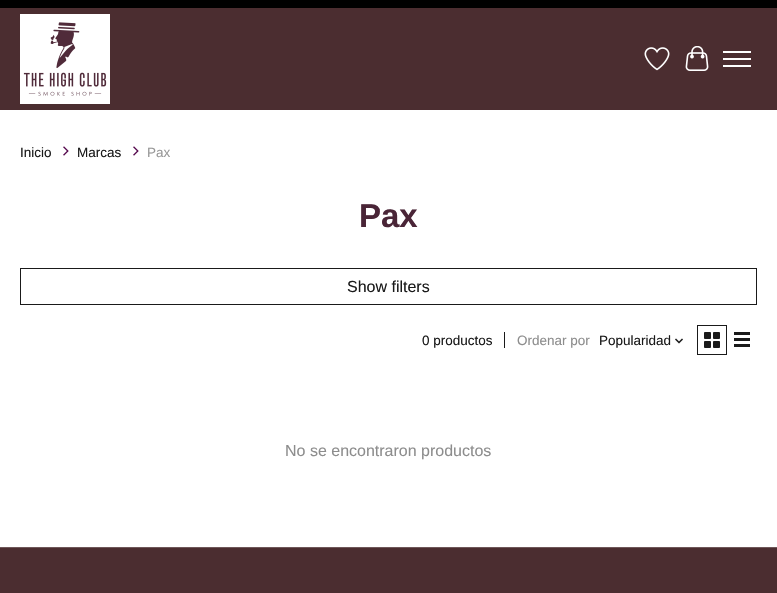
#include "include/core/SkBlurTypes.h"
#include "include/core/SkCanvas.h"
#include "include/core/SkData.h"
#include "include/core/SkFont.h"
#include "include/core/SkFontMgr.h"
#include "include/core/SkImage.h"
#include "include/core/SkMaskFilter.h"
#include "include/core/SkPaint.h"
#include "include/core/SkPathBuilder.h"
#include "include/core/SkTextBlob.h"
#include "include/effects/SkDashPathEffect.h"
#include "include/effects/SkGradientShader.h"
#include "include/utils/SkParsePath.h"

extern sk_sp<SkFontMgr> fontMgr;

void draw(SkCanvas* canvas) {
  SkPaint p;
  p.setAntiAlias(true);
  canvas->clear(SK_ColorWHITE);
  p.setColor(SkColorSetRGB(75, 45, 48));
  canvas->drawRect(SkRect::MakeLTRB(0, 8, 777, 110), p);
  p.setColor(SK_ColorBLACK);
  canvas->drawRect(SkRect::MakeLTRB(0, 0, 777, 8), p);
  canvas->drawImageRect(SkImages::DeferredFromEncodedData(SkData::MakeFromFileName("images/1.png")), SkRect::MakeLTRB(20, 14, 110, 104), SkSamplingOptions());
  canvas->drawImageRect(SkImages::DeferredFromEncodedData(SkData::MakeFromFileName("images/2.png")), SkRect::MakeLTRB(644, 47, 670, 71), SkSamplingOptions());
  canvas->drawImageRect(SkImages::DeferredFromEncodedData(SkData::MakeFromFileName("images/3.png")), SkRect::MakeLTRB(685, 46, 709, 71), SkSamplingOptions());
  p.setColor(SK_ColorWHITE);
  canvas->drawRect(SkRect::MakeLTRB(723, 58, 751, 60), p);
  canvas->drawRect(SkRect::MakeLTRB(723, 51, 751, 53), p);
  canvas->drawRect(SkRect::MakeLTRB(723, 65, 751, 67), p);
  canvas->drawImageRect(SkImages::DeferredFromEncodedData(SkData::MakeFromFileName("images/4.png")), SkRect::MakeLTRB(63, 146, 69, 156), SkSamplingOptions());
  canvas->drawImageRect(SkImages::DeferredFromEncodedData(SkData::MakeFromFileName("images/4.png")), SkRect::MakeLTRB(133, 146, 139, 156), SkSamplingOptions());
  p.setStyle(SkPaint::kStroke_Style);
  p.setStrokeWidth(1);
  p.setColor(SkColorSetRGB(26, 26, 26));
  canvas->drawRect(SkRect::MakeLTRB(20.5f, 268.5f, 756.5f, 304.5f), p);
  p.setStyle(SkPaint::kFill_Style);
  canvas->drawRect(SkRect::MakeLTRB(504, 332, 505, 348), p);
  canvas->drawImageRect(SkImages::DeferredFromEncodedData(SkData::MakeFromFileName("images/5.png")), SkRect::MakeLTRB(675, 338, 683, 344), SkSamplingOptions());
  p.setStyle(SkPaint::kStroke_Style);
  canvas->drawRect(SkRect::MakeLTRB(697.5f, 325.5f, 726.5f, 354.5f), p);
  canvas->drawImageRect(SkImages::DeferredFromEncodedData(SkData::MakeFromFileName("images/6.png")), SkRect::MakeLTRB(704, 332, 720, 348), SkSamplingOptions());
  p.setStyle(SkPaint::kFill_Style);
  canvas->drawRect(SkRect::MakeLTRB(734, 332, 750, 335), p);
  canvas->drawRect(SkRect::MakeLTRB(734, 338, 750, 341), p);
  canvas->drawRect(SkRect::MakeLTRB(734, 344, 750, 347), p);
  p.setColor(SkColorSetRGB(75, 45, 48));
  canvas->drawRect(SkRect::MakeLTRB(0, 548, 777, 593), p);
  p.setColor(SkColorSetRGB(111, 87, 89));
  canvas->drawRect(SkRect::MakeLTRB(0, 547, 777, 548), p);
  SkFont font1(fontMgr->matchFamilyStyle("Liberation Sans", SkFontStyle::Normal()), 13.5f);
  font1.setSubpixel(true);
  p.setColor(SkColorSetRGB(26, 26, 26));
  canvas->drawString("Inicio", 20, 157, font1, p);
  canvas->drawString("Marcas", 77, 157, font1, p);
  p.setColor(SkColorSetRGB(152, 152, 152));
  canvas->drawString("Pax", 147, 157, font1, p);
  SkFont font2(fontMgr->matchFamilyStyle("Liberation Sans", SkFontStyle::Bold()), 33);
  font2.setSubpixel(true);
  p.setColor(SkColorSetRGB(74, 37, 55));
  canvas->drawString("Pax", 359, 227, font2, p);
  SkFont font3(fontMgr->matchFamilyStyle("Liberation Sans", SkFontStyle::Normal()), 16);
  font3.setSubpixel(true);
  p.setColor(SkColorSetRGB(26, 26, 26));
  canvas->drawString("Show filters", 347, 292, font3, p);
  canvas->drawString("0 productos", 422, 345, font1, p);
  p.setColor(SkColorSetRGB(141, 141, 141));
  canvas->drawString("Ordenar por", 517, 345, font1, p);
  p.setColor(SkColorSetRGB(26, 26, 26));
  canvas->drawString("Popularidad", 599, 345, font1, p);
  p.setColor(SkColorSetRGB(141, 141, 141));
  canvas->drawString("No se encontraron productos", 285, 456, font3, p);
}
